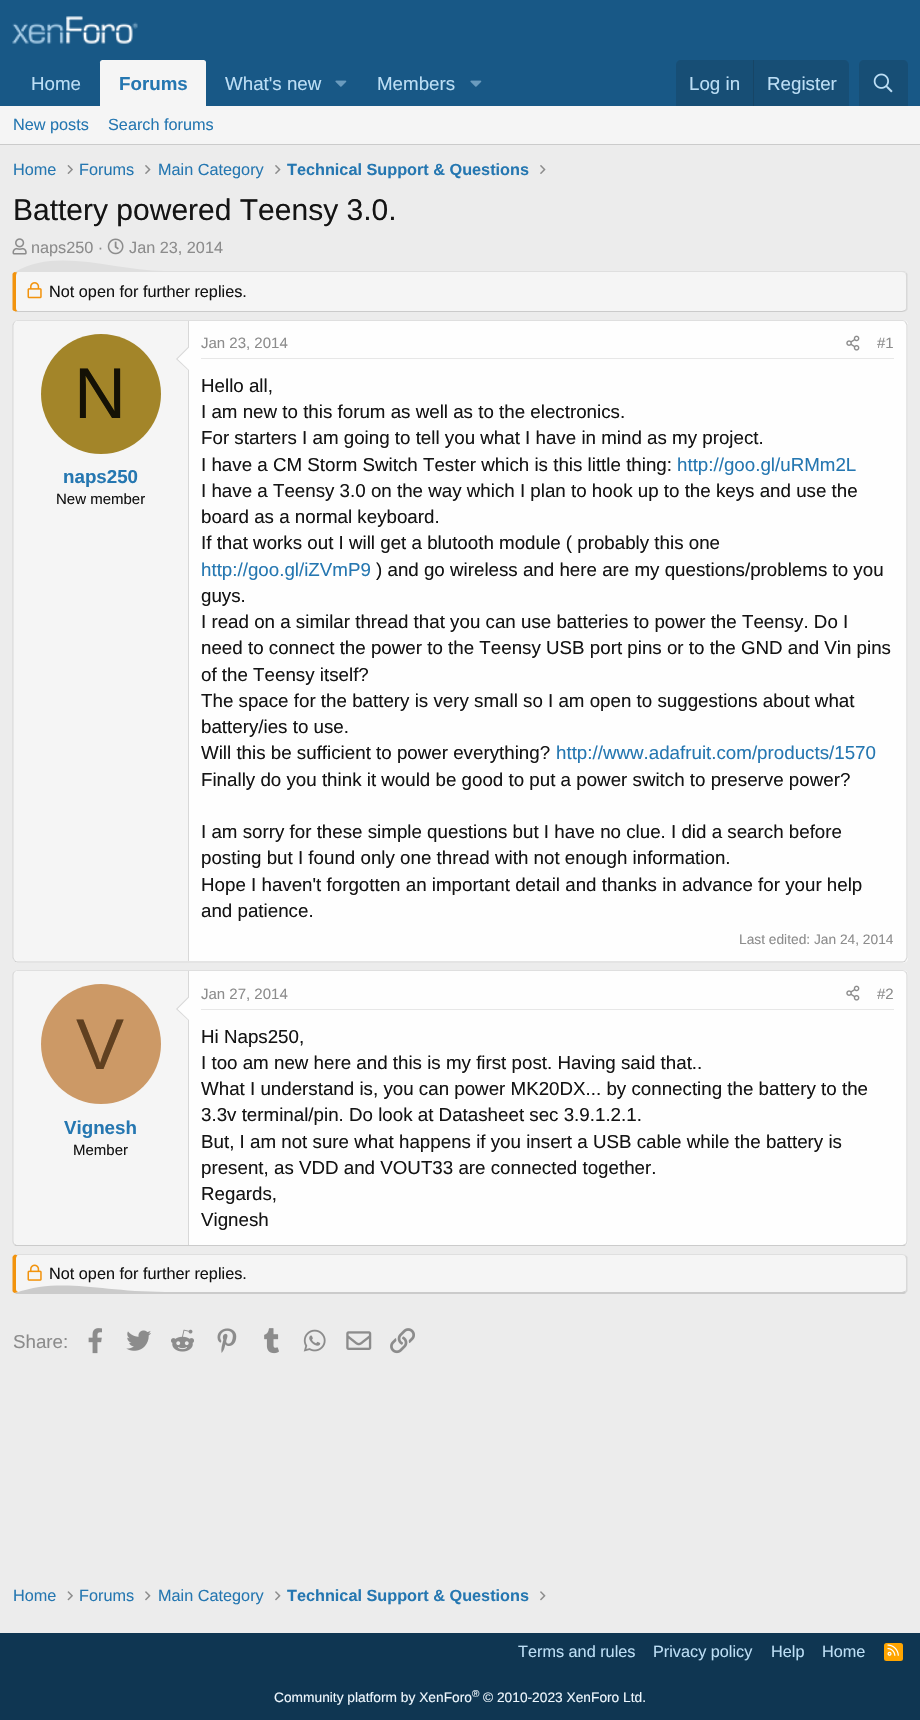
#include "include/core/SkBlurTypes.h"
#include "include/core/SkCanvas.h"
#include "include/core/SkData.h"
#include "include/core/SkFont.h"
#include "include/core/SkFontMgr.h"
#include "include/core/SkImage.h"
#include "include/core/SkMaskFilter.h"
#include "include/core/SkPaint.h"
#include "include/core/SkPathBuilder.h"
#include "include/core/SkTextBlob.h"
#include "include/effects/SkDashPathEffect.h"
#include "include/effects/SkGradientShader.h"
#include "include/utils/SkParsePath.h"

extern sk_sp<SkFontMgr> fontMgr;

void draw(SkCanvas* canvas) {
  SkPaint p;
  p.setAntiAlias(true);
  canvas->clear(SkColorSetRGB(236, 236, 236));
  p.setColor(SkColorSetRGB(24, 88, 134));
  canvas->drawRect(SkRect::MakeLTRB(0, 0, 920, 106), p);
  canvas->drawImageRect(SkImages::DeferredFromEncodedData(SkData::MakeFromFileName("images/1.png")), SkRect::MakeLTRB(12, 16, 138, 44), SkSamplingOptions());
  p.setColor(SkColorSetRGB(245, 245, 245));
  canvas->drawPath(SkPathBuilder().moveTo(102.5f, 60).lineTo(203.5f, 60).cubicTo(205, 60, 206, 61, 206, 62.5f).lineTo(206, 106).lineTo(100, 106).lineTo(100, 62.5f).cubicTo(100, 61, 101, 60, 102.5f, 60).close().detach(), p);
  canvas->drawImageRect(SkImages::DeferredFromEncodedData(SkData::MakeFromFileName("images/2.png")), SkRect::MakeLTRB(335, 80, 347, 87), SkSamplingOptions());
  canvas->drawImageRect(SkImages::DeferredFromEncodedData(SkData::MakeFromFileName("images/2.png")), SkRect::MakeLTRB(470, 80, 482, 87), SkSamplingOptions());
  p.setColor(SkColorSetRGB(23, 78, 117));
  canvas->drawPath(SkPathBuilder().moveTo(681, 60).lineTo(844, 60).cubicTo(847, 60, 849, 62, 849, 65).lineTo(849, 106).lineTo(676, 106).lineTo(676, 65).cubicTo(676, 62, 678, 60, 681, 60).close().detach(), p);
  p.setColor(SkColorSetRGB(23, 69, 102));
  canvas->drawRect(SkRect::MakeLTRB(753, 60, 754, 106), p);
  p.setColor(SkColorSetRGB(23, 78, 117));
  canvas->drawPath(SkPathBuilder().moveTo(864, 60).lineTo(903, 60).cubicTo(906, 60, 908, 62, 908, 65).lineTo(908, 106).lineTo(859, 106).lineTo(859, 65).cubicTo(859, 62, 861, 60, 864, 60).close().detach(), p);
  canvas->drawImageRect(SkImages::DeferredFromEncodedData(SkData::MakeFromFileName("images/3.png")), SkRect::MakeLTRB(873, 73, 893, 93), SkSamplingOptions());
  p.setColor(SkColorSetRGB(245, 245, 245));
  canvas->drawRect(SkRect::MakeLTRB(0, 106, 920, 144), p);
  p.setColor(SkColorSetRGB(203, 203, 203));
  canvas->drawRect(SkRect::MakeLTRB(0, 144, 920, 145), p);
  canvas->drawImageRect(SkImages::DeferredFromEncodedData(SkData::MakeFromFileName("images/4.png")), SkRect::MakeLTRB(67, 165, 73, 174), SkSamplingOptions());
  canvas->drawImageRect(SkImages::DeferredFromEncodedData(SkData::MakeFromFileName("images/5.png")), SkRect::MakeLTRB(145, 165, 151, 174), SkSamplingOptions());
  canvas->drawImageRect(SkImages::DeferredFromEncodedData(SkData::MakeFromFileName("images/5.png")), SkRect::MakeLTRB(275, 165, 281, 174), SkSamplingOptions());
  canvas->drawImageRect(SkImages::DeferredFromEncodedData(SkData::MakeFromFileName("images/5.png")), SkRect::MakeLTRB(540, 165, 546, 174), SkSamplingOptions());
  canvas->drawImageRect(SkImages::DeferredFromEncodedData(SkData::MakeFromFileName("images/6.png")), SkRect::MakeLTRB(12, 238, 27, 255), SkSamplingOptions());
  canvas->drawImageRect(SkImages::DeferredFromEncodedData(SkData::MakeFromFileName("images/7.png")), SkRect::MakeLTRB(107, 238, 124, 255), SkSamplingOptions());
  p.setColor(SkColorSetRGB(245, 245, 245));
  canvas->drawPath(SkPathBuilder().moveTo(18, 272).lineTo(902, 272).cubicTo(905, 272, 906, 274, 906, 276).lineTo(906, 308).cubicTo(906, 310, 905, 311, 902, 311).lineTo(18, 311).cubicTo(17, 311, 16, 310, 16, 308).lineTo(16, 276).cubicTo(16, 274, 17, 272, 18, 272).close().detach(), p);
  p.setColor(SkColorSetRGB(223, 223, 223));
  canvas->drawPath(SkPathBuilder().moveTo(18, 272).lineTo(17, 273).lineTo(15, 272).cubicTo(58, 247, 114, 271, 164, 271).lineTo(904, 271).lineTo(906, 272).lineTo(905, 273).cubicTo(905, 273, 904, 272, 902, 272).close().detach(), p);
  p.setColor(SkColorSetRGB(216, 216, 216));
  canvas->drawPath(SkPathBuilder().moveTo(907.5f, 309.5f).lineTo(906, 311).lineTo(905, 310).lineTo(906, 308.5f).lineTo(906, 281.5f).cubicTo(906, 280, 906.5f, 275.5f, 905.5f, 273.5f).lineTo(906.5f, 272.5f).lineTo(907.5f, 274).close().detach(), p);
  p.setColor(SkColorSetRGB(203, 203, 203));
  canvas->drawPath(SkPathBuilder().moveTo(906, 311).lineTo(902, 312).lineTo(18, 312).lineTo(15, 312).lineTo(17, 311).lineTo(902, 311).lineTo(905, 310).close().detach(), p);
  p.setColor(SkColorSetRGB(242, 147, 13));
  canvas->drawPath(SkPathBuilder().moveTo(12.5f, 274).cubicTo(13, 273, 13.5f, 272.5f, 14.5f, 272).lineTo(17, 272.5f).cubicTo(16.5f, 273.5f, 16, 274.5f, 16, 276).lineTo(16, 308).cubicTo(16, 309.5f, 16.5f, 310.5f, 17.5f, 311).lineTo(15.5f, 311.5f).cubicTo(14, 311, 13, 310.5f, 12.5f, 309.5f).close().detach(), p);
  canvas->drawImageRect(SkImages::DeferredFromEncodedData(SkData::MakeFromFileName("images/8.png")), SkRect::MakeLTRB(27, 282, 42, 299), SkSamplingOptions());
  p.setColor(SkColorSetRGB(254, 254, 254));
  canvas->drawRoundRect(SkRect::MakeLTRB(13, 320, 908, 963), 5, 5, p);
  p.setStyle(SkPaint::kStroke_Style);
  p.setStrokeWidth(1.2f);
  p.setColor(SkColorSetRGB(223, 223, 223));
  canvas->drawPath(SkPathBuilder().moveTo(14.5f, 322).cubicTo(15, 321, 16.5f, 320.5f, 17.5f, 320.5f).lineTo(902.5f, 320.5f).cubicTo(903.5f, 320.5f, 905, 321, 905.5f, 322).detach(), p);
  p.setColor(SkColorSetRGB(216, 216, 216));
  canvas->drawPath(SkPathBuilder().moveTo(905.5f, 322).lineTo(907, 325).lineTo(907, 957.5f).lineTo(905.5f, 960.5f).detach(), p);
  p.setColor(SkColorSetRGB(203, 203, 203));
  canvas->drawPath(SkPathBuilder().moveTo(905.5f, 960.5f).cubicTo(905, 961.5f, 903.5f, 962, 902.5f, 962).lineTo(17.5f, 962).cubicTo(16.5f, 962, 15, 961.5f, 14.5f, 960.5f).detach(), p);
  p.setColor(SkColorSetRGB(216, 216, 216));
  canvas->drawPath(SkPathBuilder().moveTo(14.5f, 960.5f).lineTo(13, 957.5f).lineTo(13, 325).lineTo(14.5f, 322).detach(), p);
  p.setStyle(SkPaint::kFill_Style);
  p.setColor(SkColorSetRGB(245, 245, 245));
  canvas->drawPath(SkPathBuilder().moveTo(18, 321).lineTo(189, 321).lineTo(189, 961).lineTo(18, 961).cubicTo(16, 961, 14, 959, 14, 957).lineTo(14, 325).cubicTo(14, 323, 16, 321, 18, 321).close().detach(), p);
  p.setColor(SkColorSetRGB(216, 216, 216));
  canvas->drawRect(SkRect::MakeLTRB(188, 321, 189, 961), p);
  canvas->drawPath(SkPathBuilder().moveTo(189, 346).lineTo(189, 371).lineTo(176, 359).close().detach(), p);
  p.setColor(SkColorSetRGB(254, 254, 254));
  canvas->drawPath(SkPathBuilder().moveTo(189, 347.5f).lineTo(189, 370).lineTo(177.5f, 359).close().detach(), p);
  p.setColor(SkColorSetRGB(163, 133, 41));
  canvas->drawCircle(101, 394, 60, p);
  p.setColor(SkColorSetRGB(231, 231, 231));
  canvas->drawRect(SkRect::MakeLTRB(201, 358, 894, 359), p);
  canvas->drawImageRect(SkImages::DeferredFromEncodedData(SkData::MakeFromFileName("images/9.png")), SkRect::MakeLTRB(846, 335, 860, 351), SkSamplingOptions());
  p.setColor(SkColorSetRGB(254, 254, 254));
  canvas->drawRoundRect(SkRect::MakeLTRB(13, 970, 908, 1246), 5, 5, p);
  p.setStyle(SkPaint::kStroke_Style);
  p.setColor(SkColorSetRGB(223, 223, 223));
  canvas->drawPath(SkPathBuilder().moveTo(14.5f, 972).cubicTo(15, 971, 16.5f, 970.5f, 17.5f, 970.5f).lineTo(902.5f, 970.5f).cubicTo(903.5f, 970.5f, 905, 971, 905.5f, 972).detach(), p);
  p.setColor(SkColorSetRGB(216, 216, 216));
  canvas->drawPath(SkPathBuilder().moveTo(905.5f, 972).cubicTo(906.5f, 972.5f, 907, 974, 907, 975).lineTo(907, 1241).cubicTo(907, 1242.5f, 906.5f, 1243.5f, 905.5f, 1244.5f).detach(), p);
  p.setColor(SkColorSetRGB(203, 203, 203));
  canvas->drawPath(SkPathBuilder().moveTo(905.5f, 1244.5f).cubicTo(905, 1245, 903.5f, 1245.5f, 902.5f, 1245.5f).lineTo(17.5f, 1245.5f).cubicTo(16.5f, 1245.5f, 15, 1245, 14.5f, 1244.5f).detach(), p);
  p.setColor(SkColorSetRGB(216, 216, 216));
  canvas->drawPath(SkPathBuilder().moveTo(14.5f, 1244.5f).cubicTo(13.5f, 1243.5f, 13, 1242.5f, 13, 1241).lineTo(13, 975).cubicTo(13, 974, 13.5f, 972.5f, 14.5f, 972).detach(), p);
  p.setStyle(SkPaint::kFill_Style);
  p.setColor(SkColorSetRGB(245, 245, 245));
  canvas->drawPath(SkPathBuilder().moveTo(18, 971).lineTo(189, 971).lineTo(189, 1245).lineTo(18, 1245).cubicTo(16, 1245, 14, 1243, 14, 1241).lineTo(14, 975).cubicTo(14, 973, 16, 971, 18, 971).close().detach(), p);
  p.setColor(SkColorSetRGB(216, 216, 216));
  canvas->drawRect(SkRect::MakeLTRB(188, 971, 189, 1245), p);
  canvas->drawPath(SkPathBuilder().moveTo(189, 996).lineTo(189, 1021).lineTo(176, 1009).close().detach(), p);
  p.setColor(SkColorSetRGB(254, 254, 254));
  canvas->drawPath(SkPathBuilder().moveTo(189, 997.5f).lineTo(189, 1020).lineTo(177.5f, 1009).close().detach(), p);
  p.setColor(SkColorSetRGB(204, 153, 102));
  canvas->drawCircle(101, 1044, 60, p);
  p.setColor(SkColorSetRGB(231, 231, 231));
  canvas->drawRect(SkRect::MakeLTRB(201, 1009, 894, 1010), p);
  canvas->drawImageRect(SkImages::DeferredFromEncodedData(SkData::MakeFromFileName("images/9.png")), SkRect::MakeLTRB(846, 985, 860, 1001), SkSamplingOptions());
  p.setColor(SkColorSetRGB(245, 245, 245));
  canvas->drawPath(SkPathBuilder().moveTo(18, 1255).lineTo(902, 1255).cubicTo(905, 1255, 906, 1257, 906, 1259).lineTo(906, 1289).cubicTo(906, 1291, 905, 1292, 902, 1292).lineTo(18, 1292).cubicTo(17, 1292, 16, 1291, 16, 1289).lineTo(16, 1259).cubicTo(16, 1257, 17, 1255, 18, 1255).close().detach(), p);
  p.setColor(SkColorSetRGB(223, 223, 223));
  canvas->drawPath(SkPathBuilder().moveTo(18, 1254).lineTo(15, 1255).lineTo(17, 1255).lineTo(902, 1255).cubicTo(903, 1255, 904, 1255, 905, 1256).lineTo(906, 1255).lineTo(902, 1254).close().detach(), p);
  p.setColor(SkColorSetRGB(216, 216, 216));
  canvas->drawPath(SkPathBuilder().moveTo(906, 1255.5f).lineTo(907.5f, 1257).lineTo(907.5f, 1291).lineTo(906.5f, 1292.5f).lineTo(905, 1291.5f).cubicTo(905.5f, 1291, 906, 1290, 906, 1289).lineTo(906, 1259).cubicTo(906, 1258, 905.5f, 1257, 905, 1256).close().detach(), p);
  p.setColor(SkColorSetRGB(203, 203, 203));
  canvas->drawPath(SkPathBuilder().moveTo(16, 1294).lineTo(15, 1293).cubicTo(63, 1277, 99, 1292, 165, 1292).lineTo(902, 1292).lineTo(905, 1291).lineTo(906, 1293).lineTo(904, 1294).close().detach(), p);
  p.setColor(SkColorSetRGB(242, 147, 13));
  canvas->drawPath(SkPathBuilder().moveTo(12.5f, 1257).cubicTo(13, 1256, 14, 1255, 15, 1254.5f).lineTo(17.5f, 1255.5f).cubicTo(16.5f, 1256, 16.5f, 1257, 16, 1258).lineTo(16, 1289.5f).lineTo(16.5f, 1291).lineTo(18, 1292).lineTo(14.5f, 1293).cubicTo(13.5f, 1292.5f, 13, 1292, 12.5f, 1291).close().detach(), p);
  canvas->drawImageRect(SkImages::DeferredFromEncodedData(SkData::MakeFromFileName("images/10.png")), SkRect::MakeLTRB(27, 1264, 42, 1281), SkSamplingOptions());
  canvas->drawImageRect(SkImages::DeferredFromEncodedData(SkData::MakeFromFileName("images/11.png")), SkRect::MakeLTRB(88, 1328, 102, 1354), SkSamplingOptions());
  canvas->drawImageRect(SkImages::DeferredFromEncodedData(SkData::MakeFromFileName("images/12.png")), SkRect::MakeLTRB(126, 1330, 151, 1351), SkSamplingOptions());
  canvas->drawImageRect(SkImages::DeferredFromEncodedData(SkData::MakeFromFileName("images/13.png")), SkRect::MakeLTRB(171, 1329, 194, 1352), SkSamplingOptions());
  canvas->drawImageRect(SkImages::DeferredFromEncodedData(SkData::MakeFromFileName("images/14.png")), SkRect::MakeLTRB(217, 1328, 237, 1353), SkSamplingOptions());
  canvas->drawImageRect(SkImages::DeferredFromEncodedData(SkData::MakeFromFileName("images/15.png")), SkRect::MakeLTRB(264, 1328, 279, 1354), SkSamplingOptions());
  canvas->drawImageRect(SkImages::DeferredFromEncodedData(SkData::MakeFromFileName("images/16.png")), SkRect::MakeLTRB(303, 1329, 326, 1352), SkSamplingOptions());
  canvas->drawImageRect(SkImages::DeferredFromEncodedData(SkData::MakeFromFileName("images/17.png")), SkRect::MakeLTRB(346, 1331, 372, 1350), SkSamplingOptions());
  canvas->drawImageRect(SkImages::DeferredFromEncodedData(SkData::MakeFromFileName("images/18.png")), SkRect::MakeLTRB(390, 1328, 415, 1354), SkSamplingOptions());
  canvas->drawImageRect(SkImages::DeferredFromEncodedData(SkData::MakeFromFileName("images/19.png")), SkRect::MakeLTRB(67, 1591, 73, 1601), SkSamplingOptions());
  canvas->drawImageRect(SkImages::DeferredFromEncodedData(SkData::MakeFromFileName("images/20.png")), SkRect::MakeLTRB(145, 1591, 151, 1601), SkSamplingOptions());
  canvas->drawImageRect(SkImages::DeferredFromEncodedData(SkData::MakeFromFileName("images/20.png")), SkRect::MakeLTRB(275, 1591, 281, 1601), SkSamplingOptions());
  canvas->drawImageRect(SkImages::DeferredFromEncodedData(SkData::MakeFromFileName("images/20.png")), SkRect::MakeLTRB(540, 1591, 546, 1601), SkSamplingOptions());
  p.setColor(SkColorSetRGB(15, 54, 82));
  canvas->drawRect(SkRect::MakeLTRB(0, 1633, 920, 1720), p);
  p.setColor(SkColorSetRGB(255, 165, 0));
  canvas->drawRoundRect(SkRect::MakeLTRB(884, 1643, 903, 1661), 2.5f, 2.5f, p);
  canvas->drawImageRect(SkImages::DeferredFromEncodedData(SkData::MakeFromFileName("images/21.png")), SkRect::MakeLTRB(887, 1644, 899, 1656), SkSamplingOptions());
  SkFont font1(fontMgr->matchFamilyStyle("Liberation Sans", SkFontStyle::Normal()), 18.75f);
  font1.setSubpixel(true);
  p.setColor(SkColorSetRGB(188, 222, 245));
  canvas->drawString("Home", 31, 90, font1, p);
  SkFont font2(fontMgr->matchFamilyStyle("Liberation Sans", SkFontStyle::Bold()), 18.75f);
  font2.setSubpixel(true);
  p.setColor(SkColorSetRGB(37, 119, 177));
  canvas->drawString("Forums", 119, 90, font2, p);
  p.setColor(SkColorSetRGB(188, 222, 245));
  canvas->drawString("What's new", 225, 90, font1, p);
  canvas->drawString("Members", 377, 90, font1, p);
  canvas->drawString("Log in", 689, 90, font1, p);
  canvas->drawString("Register", 767, 90, font1, p);
  SkFont font3(fontMgr->matchFamilyStyle("Liberation Sans", SkFontStyle::Normal()), 16.25f);
  font3.setSubpixel(true);
  p.setColor(SkColorSetRGB(37, 119, 177));
  canvas->drawString("New posts", 13, 130, font3, p);
  canvas->drawString("Search forums", 108, 130, font3, p);
  canvas->drawString("Home", 13, 175, font3, p);
  canvas->drawString("Forums", 79, 175, font3, p);
  canvas->drawString("Main Category", 158, 175, font3, p);
  SkFont font4(fontMgr->matchFamilyStyle("Liberation Sans", SkFontStyle::Bold()), 16.25f);
  font4.setSubpixel(true);
  canvas->drawString("Technical Support & Questions", 287, 175, font4, p);
  SkFont font5(fontMgr->matchFamilyStyle("Liberation Sans", SkFontStyle::Normal()), 30);
  font5.setSubpixel(true);
  p.setColor(SkColorSetRGB(20, 20, 20));
  canvas->drawString("Battery powered Teensy 3.0.", 13, 220, font5, p);
  p.setColor(SkColorSetRGB(140, 140, 140));
  canvas->drawString("naps250 ·", 31, 253, font3, p);
  canvas->drawString("Jan 23, 2014", 129, 253, font3, p);
  p.setColor(SkColorSetRGB(20, 20, 20));
  canvas->drawString("Not open for further replies.", 49, 297, font3, p);
  SkFont font6(fontMgr->matchFamilyStyle("Liberation Sans", SkFontStyle::Normal()), 72);
  font6.setSubpixel(true);
  p.setColor(SkColorSetRGB(20, 17, 5));
  canvas->drawString("N", 74, 418, font6, p);
  p.setColor(SkColorSetRGB(37, 119, 177));
  canvas->drawString("naps250", 63, 483, font2, p);
  SkFont font7(fontMgr->matchFamilyStyle("Liberation Sans", SkFontStyle::Normal()), 15);
  font7.setSubpixel(true);
  p.setColor(SkColorSetRGB(20, 20, 20));
  canvas->drawString("New member", 56, 504, font7, p);
  p.setColor(SkColorSetRGB(140, 140, 140));
  canvas->drawString("Jan 23, 2014", 201, 348, font7, p);
  canvas->drawString("#1", 877, 348, font7, p);
  p.setColor(SkColorSetRGB(20, 20, 20));
  canvas->drawString("Hello all,", 201, 392, font1, p);
  canvas->drawString("I am new to this forum as well as to the electronics.", 201, 418, font1, p);
  canvas->drawString("For starters I am going to tell you what I have in mind as my project.", 201, 444, font1, p);
  canvas->drawString("I have a CM Storm Switch Tester which is this little thing:", 201, 471, font1, p);
  p.setColor(SkColorSetRGB(37, 119, 177));
  canvas->drawString("http://goo.gl/uRMm2L", 677, 471, font1, p);
  p.setColor(SkColorSetRGB(20, 20, 20));
  canvas->drawString("I have a Teensy 3.0 on the way which I plan to hook up to the keys and use the", 201, 497, font1, p);
  canvas->drawString("board as a normal keyboard.", 201, 523, font1, p);
  canvas->drawString("If that works out I will get a blutooth module ( probably this one", 201, 549, font1, p);
  p.setColor(SkColorSetRGB(37, 119, 177));
  canvas->drawString("http://goo.gl/iZVmP9", 201, 576, font1, p);
  p.setColor(SkColorSetRGB(20, 20, 20));
  canvas->drawString(") and go wireless and here are my questions/problems to you", 376, 576, font1, p);
  canvas->drawString("guys.", 201, 602, font1, p);
  canvas->drawString("I read on a similar thread that you can use batteries to power the Teensy. Do I", 201, 628, font1, p);
  canvas->drawString("need to connect the power to the Teensy USB port pins or to the GND and Vin pins", 201, 654, font1, p);
  canvas->drawString("of the Teensy itself?", 201, 681, font1, p);
  canvas->drawString("The space for the battery is very small so I am open to suggestions about what", 201, 707, font1, p);
  canvas->drawString("battery/ies to use.", 201, 733, font1, p);
  canvas->drawString("Will this be sufficient to power everything?", 201, 759, font1, p);
  p.setColor(SkColorSetRGB(37, 119, 177));
  canvas->drawString("http://www.adafruit.com/products/1570", 556, 759, font1, p);
  p.setColor(SkColorSetRGB(20, 20, 20));
  canvas->drawString("Finally do you think it would be good to put a power switch to preserve power?", 201, 786, font1, p);
  canvas->drawString("I am sorry for these simple questions but I have no clue. I did a search before", 201, 838, font1, p);
  canvas->drawString("posting but I found only one thread with not enough information.", 201, 864, font1, p);
  canvas->drawString("Hope I haven't forgotten an important detail and thanks in advance for your help", 201, 891, font1, p);
  canvas->drawString("and patience.", 201, 917, font1, p);
  SkFont font8(fontMgr->matchFamilyStyle("Liberation Sans", SkFontStyle::Normal()), 13.75f);
  font8.setSubpixel(true);
  p.setColor(SkColorSetRGB(140, 140, 140));
  canvas->drawString("Last edited: Jan 24, 2014", 739, 944, font8, p);
  p.setColor(SkColorSetRGB(96, 64, 32));
  canvas->drawString("V", 76, 1069, font6, p);
  p.setColor(SkColorSetRGB(37, 119, 177));
  canvas->drawString("Vignesh", 64, 1134, font2, p);
  p.setColor(SkColorSetRGB(20, 20, 20));
  canvas->drawString("Member", 73, 1155, font7, p);
  p.setColor(SkColorSetRGB(140, 140, 140));
  canvas->drawString("Jan 27, 2014", 201, 999, font7, p);
  canvas->drawString("#2", 877, 999, font7, p);
  p.setColor(SkColorSetRGB(20, 20, 20));
  canvas->drawString("Hi Naps250,", 201, 1043, font1, p);
  canvas->drawString("I too am new here and this is my first post. Having said that..", 201, 1069, font1, p);
  canvas->drawString("What I understand is, you can power MK20DX... by connecting the battery to the", 201, 1095, font1, p);
  canvas->drawString("3.3v terminal/pin. Do look at Datasheet sec 3.9.1.2.1.", 201, 1121, font1, p);
  canvas->drawString("But, I am not sure what happens if you insert a USB cable while the battery is", 201, 1148, font1, p);
  canvas->drawString("present, as VDD and VOUT33 are connected together.", 201, 1174, font1, p);
  canvas->drawString("Regards,", 201, 1200, font1, p);
  canvas->drawString("Vignesh", 201, 1226, font1, p);
  canvas->drawString("Not open for further replies.", 49, 1279, font3, p);
  p.setColor(SkColorSetRGB(140, 140, 140));
  canvas->drawString("Share:", 13, 1348, font1, p);
  p.setColor(SkColorSetRGB(37, 119, 177));
  canvas->drawString("Home", 13, 1601, font3, p);
  canvas->drawString("Forums", 79, 1601, font3, p);
  canvas->drawString("Main Category", 158, 1601, font3, p);
  canvas->drawString("Technical Support & Questions", 287, 1601, font4, p);
  p.setColor(SkColorSetRGB(188, 222, 245));
  canvas->drawString("Terms and rules", 518, 1657, font3, p);
  canvas->drawString("Privacy policy", 653, 1657, font3, p);
  canvas->drawString("Help", 771, 1657, font3, p);
  canvas->drawString("Home", 822, 1657, font3, p);
  p.setColor(SkColorSetRGB(237, 246, 253));
  canvas->drawString("Community platform by XenForo", 274, 1702, font8, p);
  SkFont font9(fontMgr->matchFamilyStyle("Liberation Sans", SkFontStyle::Normal()), 10);
  font9.setSubpixel(true);
  canvas->drawString("®", 472, 1697, font9, p);
  canvas->drawString("© 2010-2023 XenForo Ltd.", 483, 1702, font8, p);
}
